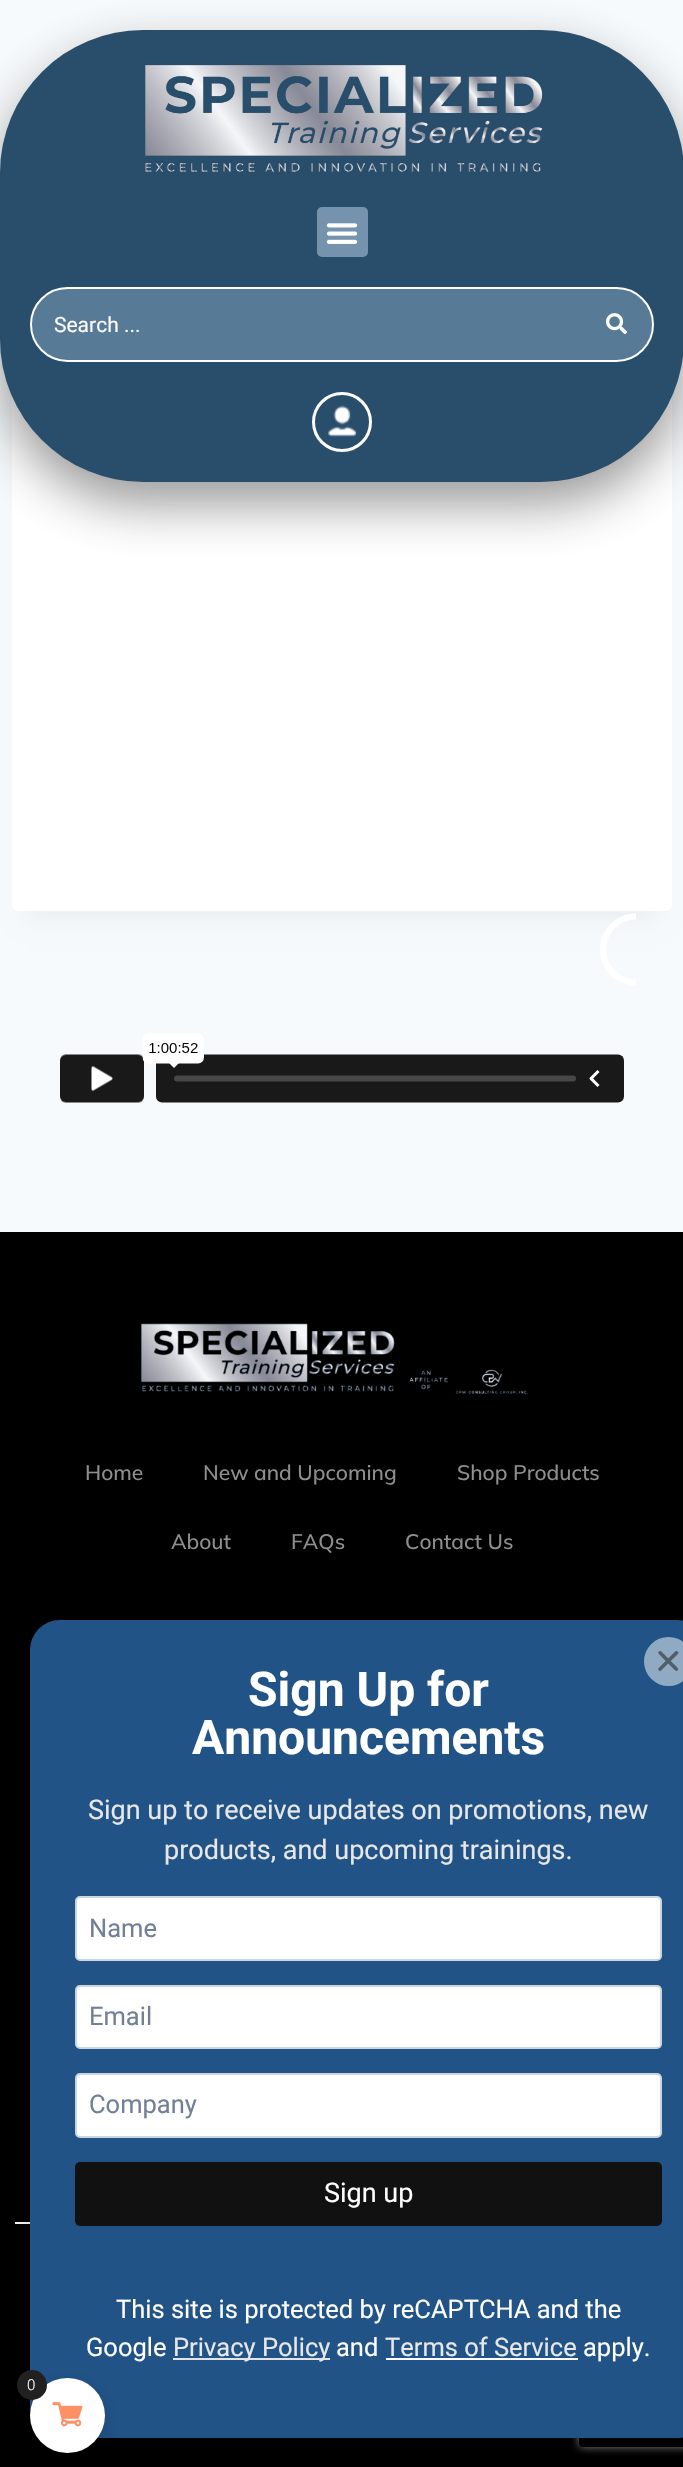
#include "include/core/SkBlurTypes.h"
#include "include/core/SkCanvas.h"
#include "include/core/SkData.h"
#include "include/core/SkFont.h"
#include "include/core/SkFontMgr.h"
#include "include/core/SkImage.h"
#include "include/core/SkMaskFilter.h"
#include "include/core/SkPaint.h"
#include "include/core/SkPathBuilder.h"
#include "include/core/SkTextBlob.h"
#include "include/effects/SkDashPathEffect.h"
#include "include/effects/SkGradientShader.h"
#include "include/utils/SkParsePath.h"

extern sk_sp<SkFontMgr> fontMgr;

void draw(SkCanvas* canvas) {
  SkPaint p;
  p.setAntiAlias(true);
  canvas->clear(SkColorSetRGB(247, 250, 252));
  p.setColor(SkColorSetARGB(13, 0, 0, 0));
  p.setMaskFilter(SkMaskFilter::MakeBlur(kNormal_SkBlurStyle, 11));
  canvas->drawRect(SkRect::MakeLTRB(27, 399, 657, 918), p);
  p.setMaskFilter(nullptr);
  p.setColor(SK_ColorWHITE);
  canvas->drawRoundRect(SkRect::MakeLTRB(12, 362, 672, 911), 6, 6, p);
  p.setColor(SkColorSetARGB(115, 27, 27, 27));
  p.setMaskFilter(SkMaskFilter::MakeBlur(kNormal_SkBlurStyle, 26));
  canvas->drawRoundRect(SkRect::MakeLTRB(0, 53, 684, 504), 143, 143, p);
  p.setMaskFilter(nullptr);
  p.setColor(SkColorSetRGB(41, 78, 107));
  canvas->drawRoundRect(SkRect::MakeLTRB(0, 30, 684, 482), 143, 143, p);
  canvas->drawImageRect(SkImages::DeferredFromEncodedData(SkData::MakeFromFileName("images/1.png")), SkRect::MakeLTRB(144, 64, 543, 172), SkSamplingOptions());
  p.setColor(SkColorSetRGB(117, 147, 173));
  canvas->drawRoundRect(SkRect::MakeLTRB(317, 207, 368, 257), 5, 5, p);
  canvas->drawImageRect(SkImages::DeferredFromEncodedData(SkData::MakeFromFileName("images/2.png")), SkRect::MakeLTRB(326, 223, 358, 244), SkSamplingOptions());
  p.setColor(SkColorSetRGB(87, 123, 151));
  canvas->drawRoundRect(SkRect::MakeLTRB(31, 288, 653, 361), 36.5f, 36.5f, p);
  p.setStyle(SkPaint::kStroke_Style);
  p.setStrokeWidth(2);
  p.setColor(SK_ColorWHITE);
  canvas->drawRoundRect(SkRect::MakeLTRB(31, 288, 653, 361), 36.5f, 36.5f, p);
  canvas->drawImageRect(SkImages::DeferredFromEncodedData(SkData::MakeFromFileName("images/3.png")), SkRect::MakeLTRB(606, 313, 627, 335), SkSamplingOptions());
  p.setStrokeWidth(3);
  canvas->drawCircle(342, 422, 28.5f, p);
  canvas->drawImageRect(SkImages::DeferredFromEncodedData(SkData::MakeFromFileName("images/4.png")), SkRect::MakeLTRB(328, 405, 357, 437), SkSamplingOptions());
  canvas->drawImageRect(SkImages::DeferredFromEncodedData(SkData::MakeFromFileName("images/5.png")), SkRect::MakeLTRB(60, 913, 636, 1103), SkSamplingOptions());
  p.setStyle(SkPaint::kFill_Style);
  p.setColor(SK_ColorBLACK);
  canvas->drawRect(SkRect::MakeLTRB(0, 1232, 683, 2467), p);
  canvas->drawImageRect(SkImages::DeferredFromEncodedData(SkData::MakeFromFileName("images/6.png")), SkRect::MakeLTRB(140, 1323, 529, 1394), SkSamplingOptions());
  p.setColor(SK_ColorWHITE);
  canvas->drawRect(SkRect::MakeLTRB(15, 2222, 30, 2224), p);
  p.setColor(SkColorSetARGB(51, 0, 0, 0));
  p.setMaskFilter(SkMaskFilter::MakeBlur(kNormal_SkBlurStyle, 17));
  canvas->drawRoundRect(SkRect::MakeLTRB(29, 1628, 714, 2454), 35, 35, p);
  p.setMaskFilter(nullptr);
  canvas->save();
  canvas->clipPath(SkPathBuilder(SkPathFillType::kEvenOdd).moveTo(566, 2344).lineTo(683, 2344).lineTo(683, 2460).lineTo(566, 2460).close().moveTo(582, 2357).lineTo(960, 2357).cubicTo(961.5f, 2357, 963, 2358.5f, 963, 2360).lineTo(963, 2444).cubicTo(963, 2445.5f, 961.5f, 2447, 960, 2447).lineTo(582, 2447).cubicTo(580.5f, 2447, 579, 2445.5f, 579, 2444).lineTo(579, 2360).cubicTo(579, 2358.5f, 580.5f, 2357, 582, 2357).close().detach(), true);
  p.setColor(SkColorSetRGB(128, 128, 128));
  p.setMaskFilter(SkMaskFilter::MakeBlur(kNormal_SkBlurStyle, 4));
  canvas->drawRoundRect(SkRect::MakeLTRB(579, 2357, 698, 2447), 3, 3, p);
  p.setMaskFilter(nullptr);
  canvas->restore();
  p.setColor(SkColorSetRGB(33, 83, 135));
  canvas->drawRoundRect(SkRect::MakeLTRB(30, 1620, 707, 2438), 30, 30, p);
  p.setColor(SkColorSetARGB(128, 255, 255, 255));
  canvas->drawCircle(668.5f, 1661.5f, 24.5f, p);
  canvas->drawImageRect(SkImages::DeferredFromEncodedData(SkData::MakeFromFileName("images/7.png")), SkRect::MakeLTRB(658, 1651, 679, 1671), SkSamplingOptions());
  p.setColor(SK_ColorWHITE);
  canvas->drawRoundRect(SkRect::MakeLTRB(76, 1897, 661, 1960), 4, 4, p);
  p.setStyle(SkPaint::kStroke_Style);
  p.setStrokeWidth(2);
  p.setColor(SkColorSetRGB(203, 213, 224));
  canvas->drawRoundRect(SkRect::MakeLTRB(76, 1897, 661, 1960), 4, 4, p);
  p.setStyle(SkPaint::kFill_Style);
  p.setColor(SK_ColorWHITE);
  canvas->drawRoundRect(SkRect::MakeLTRB(76, 1986, 661, 2048), 4, 4, p);
  p.setStyle(SkPaint::kStroke_Style);
  p.setColor(SkColorSetRGB(203, 213, 224));
  canvas->drawRoundRect(SkRect::MakeLTRB(76, 1986, 661, 2048), 4, 4, p);
  p.setStyle(SkPaint::kFill_Style);
  p.setColor(SK_ColorWHITE);
  canvas->drawRoundRect(SkRect::MakeLTRB(76, 2074, 661, 2137), 4, 4, p);
  p.setStyle(SkPaint::kStroke_Style);
  p.setColor(SkColorSetRGB(203, 213, 224));
  canvas->drawRoundRect(SkRect::MakeLTRB(76, 2074, 661, 2137), 4, 4, p);
  p.setStyle(SkPaint::kFill_Style);
  p.setColor(SkColorSetRGB(17, 17, 17));
  canvas->drawRoundRect(SkRect::MakeLTRB(75, 2162, 662, 2226), 5, 5, p);
  p.setColor(SkColorSetRGB(227, 227, 227));
  canvas->drawRect(SkRect::MakeLTRB(173, 2358, 330, 2360), p);
  p.setColor(SK_ColorWHITE);
  canvas->drawRect(SkRect::MakeLTRB(386, 2358, 578, 2360), p);
  p.setColor(SkColorSetARGB(43, 0, 0, 0));
  p.setMaskFilter(SkMaskFilter::MakeBlur(kNormal_SkBlurStyle, 7.5f));
  canvas->drawRoundRect(SkRect::MakeLTRB(30, 2384, 105, 2459), 37.5f, 37.5f, p);
  p.setMaskFilter(nullptr);
  p.setColor(SK_ColorWHITE);
  canvas->drawCircle(67.5f, 2415.5f, 37.5f, p);
  p.setColor(SkColorSetRGB(33, 33, 33));
  canvas->drawCircle(32, 2385, 15, p);
  canvas->drawImageRect(SkImages::DeferredFromEncodedData(SkData::MakeFromFileName("images/8.png")), SkRect::MakeLTRB(52, 2402, 83, 2427), SkSamplingOptions());
  SkFont font1(fontMgr->matchFamilyStyle("Roboto", SkFontStyle::Normal()), 21);
  font1.setSubpixel(true);
  p.setColor(SK_ColorWHITE);
  canvas->drawString("Search ...", 54, 332, font1, p);
  SkFont font2(fontMgr->matchFamilyStyle("Mulish", SkFontStyle(500, SkFontStyle::kNormal_Width, SkFontStyle::kUpright_Slant)), 21);
  font2.setSubpixel(true);
  p.setColor(SkColorSetRGB(142, 142, 142));
  canvas->drawString("Home", 85, 1480, font2, p);
  canvas->drawString("New and Upcoming", 203, 1480, font2, p);
  canvas->drawString("Shop Products", 457, 1480, font2, p);
  canvas->drawString("About", 171, 1549, font2, p);
  canvas->drawString("FAQs", 291, 1549, font2, p);
  canvas->drawString("Contact Us", 405, 1549, font2, p);
  SkFont font3(fontMgr->matchFamilyStyle("Roboto", SkFontStyle::Bold()), 48);
  font3.setSubpixel(true);
  p.setColor(SK_ColorWHITE);
  canvas->drawString("Sign Up for", 248, 1706, font3, p);
  canvas->drawString("Announcements", 192, 1754, font3, p);
  SkFont font4(fontMgr->matchFamilyStyle("Roboto", SkFontStyle::Normal()), 27);
  font4.setSubpixel(true);
  p.setColor(SkColorSetRGB(231, 231, 231));
  canvas->drawString("Sign up to receive updates on promotions, new", 88, 1819, font4, p);
  canvas->drawString("products, and upcoming trainings.", 164, 1859, font4, p);
  SkFont font5(fontMgr->matchFamilyStyle("Roboto", SkFontStyle::Normal()), 25.5f);
  font5.setSubpixel(true);
  p.setColor(SkColorSetRGB(113, 128, 150));
  canvas->drawString("Name", 89, 1937, font5, p);
  canvas->drawString("Email", 89, 2025, font5, p);
  canvas->drawString("Company", 89, 2113, font5, p);
  p.setColor(SK_ColorWHITE);
  canvas->drawString("Sign up", 324, 2202, font4, p);
  canvas->drawString("This site is protected by reCAPTCHA and the", 116, 2318, font5, p);
  canvas->drawString("Google", 86, 2356, font5, p);
  p.setColor(SkColorSetRGB(231, 231, 231));
  canvas->drawString("Privacy Policy", 173, 2356, font5, p);
  p.setColor(SK_ColorWHITE);
  canvas->drawString("and", 336, 2356, font5, p);
  p.setColor(SkColorSetRGB(231, 231, 231));
  canvas->drawString("Terms of Service", 385, 2356, font5, p);
  p.setColor(SK_ColorWHITE);
  canvas->drawString("apply.", 583, 2356, font5, p);
  SkFont font6(fontMgr->matchFamilyStyle("Roboto", SkFontStyle(300, SkFontStyle::kNormal_Width, SkFontStyle::kUpright_Slant)), 15);
  font6.setSubpixel(true);
  canvas->drawString("0", 27, 2390, font6, p);
}
